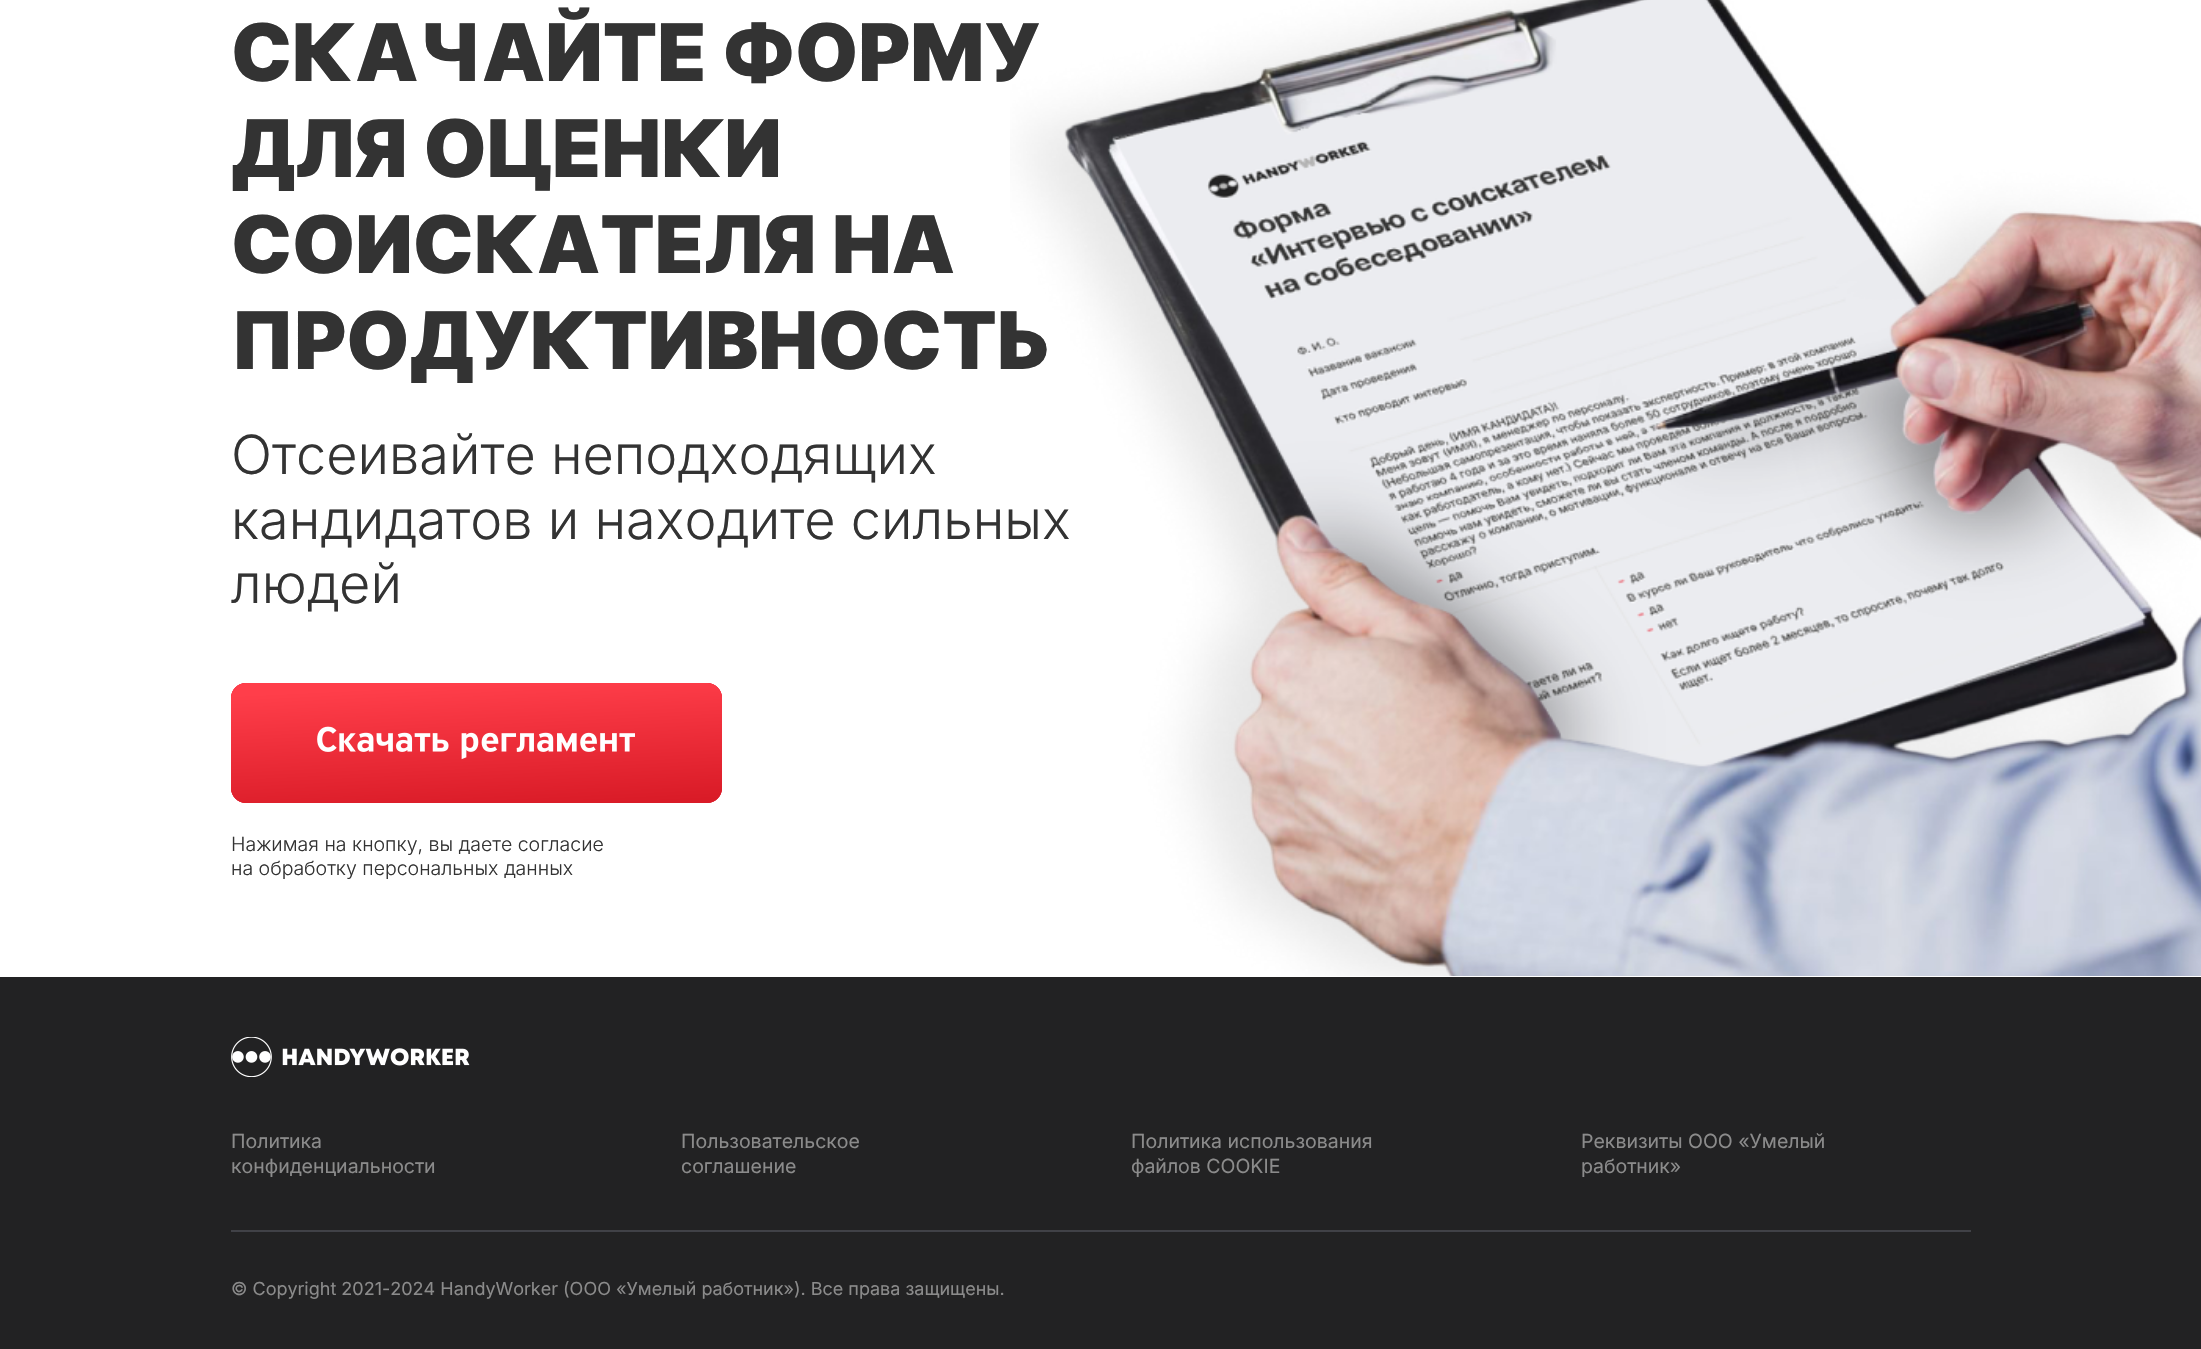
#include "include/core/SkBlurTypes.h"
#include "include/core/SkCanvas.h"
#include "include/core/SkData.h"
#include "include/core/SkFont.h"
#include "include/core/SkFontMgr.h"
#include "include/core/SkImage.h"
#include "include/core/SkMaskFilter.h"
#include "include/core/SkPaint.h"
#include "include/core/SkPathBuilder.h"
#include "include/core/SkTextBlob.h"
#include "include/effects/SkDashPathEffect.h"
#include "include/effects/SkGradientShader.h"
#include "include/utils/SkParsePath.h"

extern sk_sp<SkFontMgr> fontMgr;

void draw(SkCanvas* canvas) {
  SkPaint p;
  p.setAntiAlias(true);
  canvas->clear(SK_ColorWHITE);
  canvas->drawImageRect(SkImages::DeferredFromEncodedData(SkData::MakeFromFileName("images/2.png")), SkRect::MakeLTRB(231, 683, 722, 803), SkSamplingOptions());
  p.setColor(SkColorSetRGB(34, 34, 35));
  canvas->drawRect(SkRect::MakeLTRB(0, 977, 2201, 1349), p);
  canvas->drawImageRect(SkImages::DeferredFromEncodedData(SkData::MakeFromFileName("images/3.png")), SkRect::MakeLTRB(231, 1037, 470, 1077), SkSamplingOptions());
  p.setStyle(SkPaint::kStroke_Style);
  p.setStrokeWidth(0.8f);
  p.setColor(SkColorSetRGB(109, 113, 124));
  canvas->drawPath(SkPathBuilder().moveTo(231, 1231).lineTo(1971, 1231).detach(), p);
  SkFont font1(fontMgr->matchFamilyStyle("Inter", SkFontStyle(900, SkFontStyle::kNormal_Width, SkFontStyle::kUpright_Slant)), 79.5f);
  font1.setSubpixel(true);
  p.setStyle(SkPaint::kFill_Style);
  p.setColor(SkColorSetRGB(51, 51, 51));
  canvas->drawString("СКАЧАЙТЕ ФОРМУ", 231, 81, font1, p);
  canvas->drawString("ДЛЯ ОЦЕНКИ", 231, 177, font1, p);
  canvas->drawString("СОИСКАТЕЛЯ НА", 231, 273, font1, p);
  canvas->drawString("ПРОДУКТИВНОСТЬ", 231, 369, font1, p);
  SkFont font2(fontMgr->matchFamilyStyle("Inter", SkFontStyle(300, SkFontStyle::kNormal_Width, SkFontStyle::kUpright_Slant)), 54);
  font2.setSubpixel(true);
  canvas->drawString("Отсеивайте неподходящих", 231, 474, font2, p);
  canvas->drawString("кандидатов и находите сильных", 231, 539, font2, p);
  canvas->drawImageRect(SkImages::DeferredFromEncodedData(SkData::MakeFromFileName("images/1.png")), SkRect::MakeLTRB(1010, 0, 2201, 976), SkSamplingOptions());
  canvas->drawString("людей", 231, 603, font2, p);
  SkFont font3(fontMgr->matchFamilyStyle("Inter", SkFontStyle(300, SkFontStyle::kNormal_Width, SkFontStyle::kUpright_Slant)), 19.5f);
  font3.setSubpixel(true);
  canvas->drawString("Нажимая на кнопку, вы даете согласие", 231, 851, font3, p);
  canvas->drawString("на обработку персональных данных", 231, 875, font3, p);
  SkFont font4(fontMgr->matchFamilyStyle("Inter", SkFontStyle::Normal()), 19.5f);
  font4.setSubpixel(true);
  p.setColor(SkColorSetRGB(139, 139, 139));
  canvas->drawString("Политика", 231, 1148, font4, p);
  canvas->drawString("конфиденциальности", 231, 1173, font4, p);
  canvas->drawString("Пользовательское", 681, 1148, font4, p);
  canvas->drawString("соглашение", 681, 1173, font4, p);
  canvas->drawString("Политика использования", 1131, 1148, font4, p);
  canvas->drawString("файлов COOKIE", 1131, 1173, font4, p);
  canvas->drawString("Реквизиты ООО «Умелый", 1581, 1148, font4, p);
  canvas->drawString("работник»", 1581, 1173, font4, p);
  SkFont font5(fontMgr->matchFamilyStyle("Inter", SkFontStyle::Normal()), 18);
  font5.setSubpixel(true);
  canvas->drawString("© Copyright 2021-2024 HandyWorker (ООО «Умелый работник»). Все права защищены.", 231, 1295, font5, p);
}
